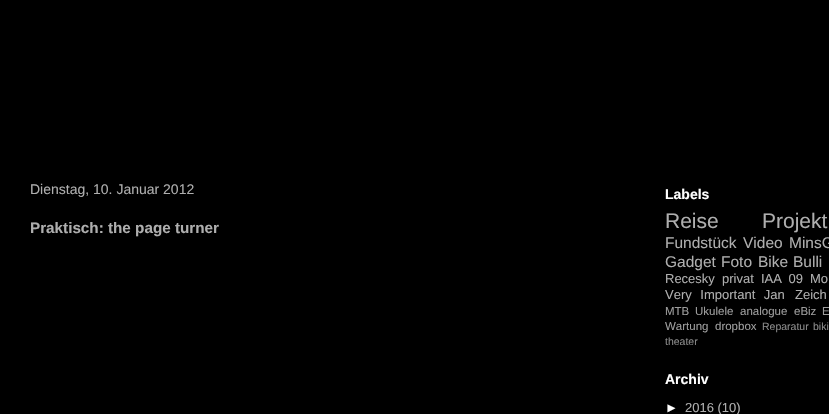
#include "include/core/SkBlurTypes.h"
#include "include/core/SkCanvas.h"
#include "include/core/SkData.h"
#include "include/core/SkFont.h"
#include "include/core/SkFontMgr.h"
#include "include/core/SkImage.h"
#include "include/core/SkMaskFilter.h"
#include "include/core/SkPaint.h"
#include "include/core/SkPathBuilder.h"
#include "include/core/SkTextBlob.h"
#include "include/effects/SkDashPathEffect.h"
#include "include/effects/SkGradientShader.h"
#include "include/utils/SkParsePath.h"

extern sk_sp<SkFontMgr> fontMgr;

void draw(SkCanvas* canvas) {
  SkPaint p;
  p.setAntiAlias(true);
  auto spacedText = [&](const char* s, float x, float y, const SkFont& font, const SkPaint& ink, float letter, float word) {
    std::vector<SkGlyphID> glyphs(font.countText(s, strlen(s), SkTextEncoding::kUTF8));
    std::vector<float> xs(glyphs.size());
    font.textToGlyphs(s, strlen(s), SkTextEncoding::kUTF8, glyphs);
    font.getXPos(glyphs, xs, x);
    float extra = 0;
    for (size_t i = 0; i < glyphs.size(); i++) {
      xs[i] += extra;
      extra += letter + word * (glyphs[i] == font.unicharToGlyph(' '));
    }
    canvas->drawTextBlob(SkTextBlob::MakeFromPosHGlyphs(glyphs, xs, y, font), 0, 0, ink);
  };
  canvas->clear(SK_ColorBLACK);
  SkFont font1(fontMgr->matchFamilyStyle("Liberation Sans", SkFontStyle::Normal()), 14);
  font1.setSubpixel(true);
  p.setColor(SkColorSetRGB(174, 174, 174));
  canvas->drawString("Dienstag, 10. Januar 2012", 30, 194, font1, p);
  SkFont font2(fontMgr->matchFamilyStyle("Liberation Sans", SkFontStyle::Bold()), 15.25f);
  font2.setSubpixel(true);
  canvas->drawString("Praktisch: the page turner", 30, 233, font2, p);
  SkFont font3(fontMgr->matchFamilyStyle("Liberation Sans", SkFontStyle::Bold()), 14);
  font3.setSubpixel(true);
  p.setColor(SK_ColorWHITE);
  canvas->drawString("Labels", 665, 199, font3, p);
  SkFont font4(fontMgr->matchFamilyStyle("Liberation Sans", SkFontStyle::Normal()), 21);
  font4.setSubpixel(true);
  p.setColor(SkColorSetRGB(174, 174, 174));
  canvas->drawString("Reise", 665, 228, font4, p);
  canvas->drawString("Projekt", 762, 228, font4, p);
  SkFont font5(fontMgr->matchFamilyStyle("Liberation Sans", SkFontStyle::Normal()), 15.5f);
  font5.setSubpixel(true);
  canvas->drawString("Fundstück", 665, 248, font5, p);
  canvas->drawString("Video", 743, 248, font5, p);
  canvas->drawString("MinsG", 789, 248, font5, p);
  canvas->drawString("Gadget", 665, 267, font5, p);
  canvas->drawString("Foto", 721, 267, font5, p);
  canvas->drawString("Bike", 758, 267, font5, p);
  canvas->drawString("Bulli", 793, 267, font5, p);
  SkFont font6(fontMgr->matchFamilyStyle("Liberation Sans", SkFontStyle::Normal()), 13);
  font6.setSubpixel(true);
  canvas->drawString("Recesky", 665, 283, font6, p);
  canvas->drawString("privat", 722, 283, font6, p);
  spacedText("IAA 09", 761, 283, font6, p, 0, 3);
  canvas->drawString("Mo", 810, 283, font6, p);
  spacedText("Very Important Jan", 665, 299, font6, p, 0, 5);
  canvas->drawString("Zeich", 795, 299, font6, p);
  SkFont font7(fontMgr->matchFamilyStyle("Liberation Sans", SkFontStyle::Normal()), 11.5f);
  font7.setSubpixel(true);
  p.setColor(SkColorSetRGB(157, 157, 157));
  canvas->drawString("MTB", 665, 315, font7, p);
  canvas->drawString("Ukulele", 695, 315, font7, p);
  canvas->drawString("analogue", 740, 315, font7, p);
  canvas->drawString("eBiz", 794, 315, font7, p);
  canvas->drawString("E", 822, 315, font7, p);
  canvas->drawString("Wartung", 665, 330, font7, p);
  canvas->drawString("dropbox", 715, 330, font7, p);
  SkFont font8(fontMgr->matchFamilyStyle("Liberation Sans", SkFontStyle::Normal()), 10.5f);
  font8.setSubpixel(true);
  p.setColor(SkColorSetRGB(139, 139, 139));
  canvas->drawString("Reparatur", 762, 330, font8, p);
  canvas->drawString("biki", 813, 330, font8, p);
  canvas->drawString("theater", 665, 345, font8, p);
  p.setColor(SK_ColorWHITE);
  canvas->drawString("Archiv", 665, 384, font3, p);
  canvas->drawString("►", 665, 412, font6, p);
  p.setColor(SkColorSetRGB(174, 174, 174));
  canvas->drawString("2016 (10)", 685, 412, font6, p);
}
